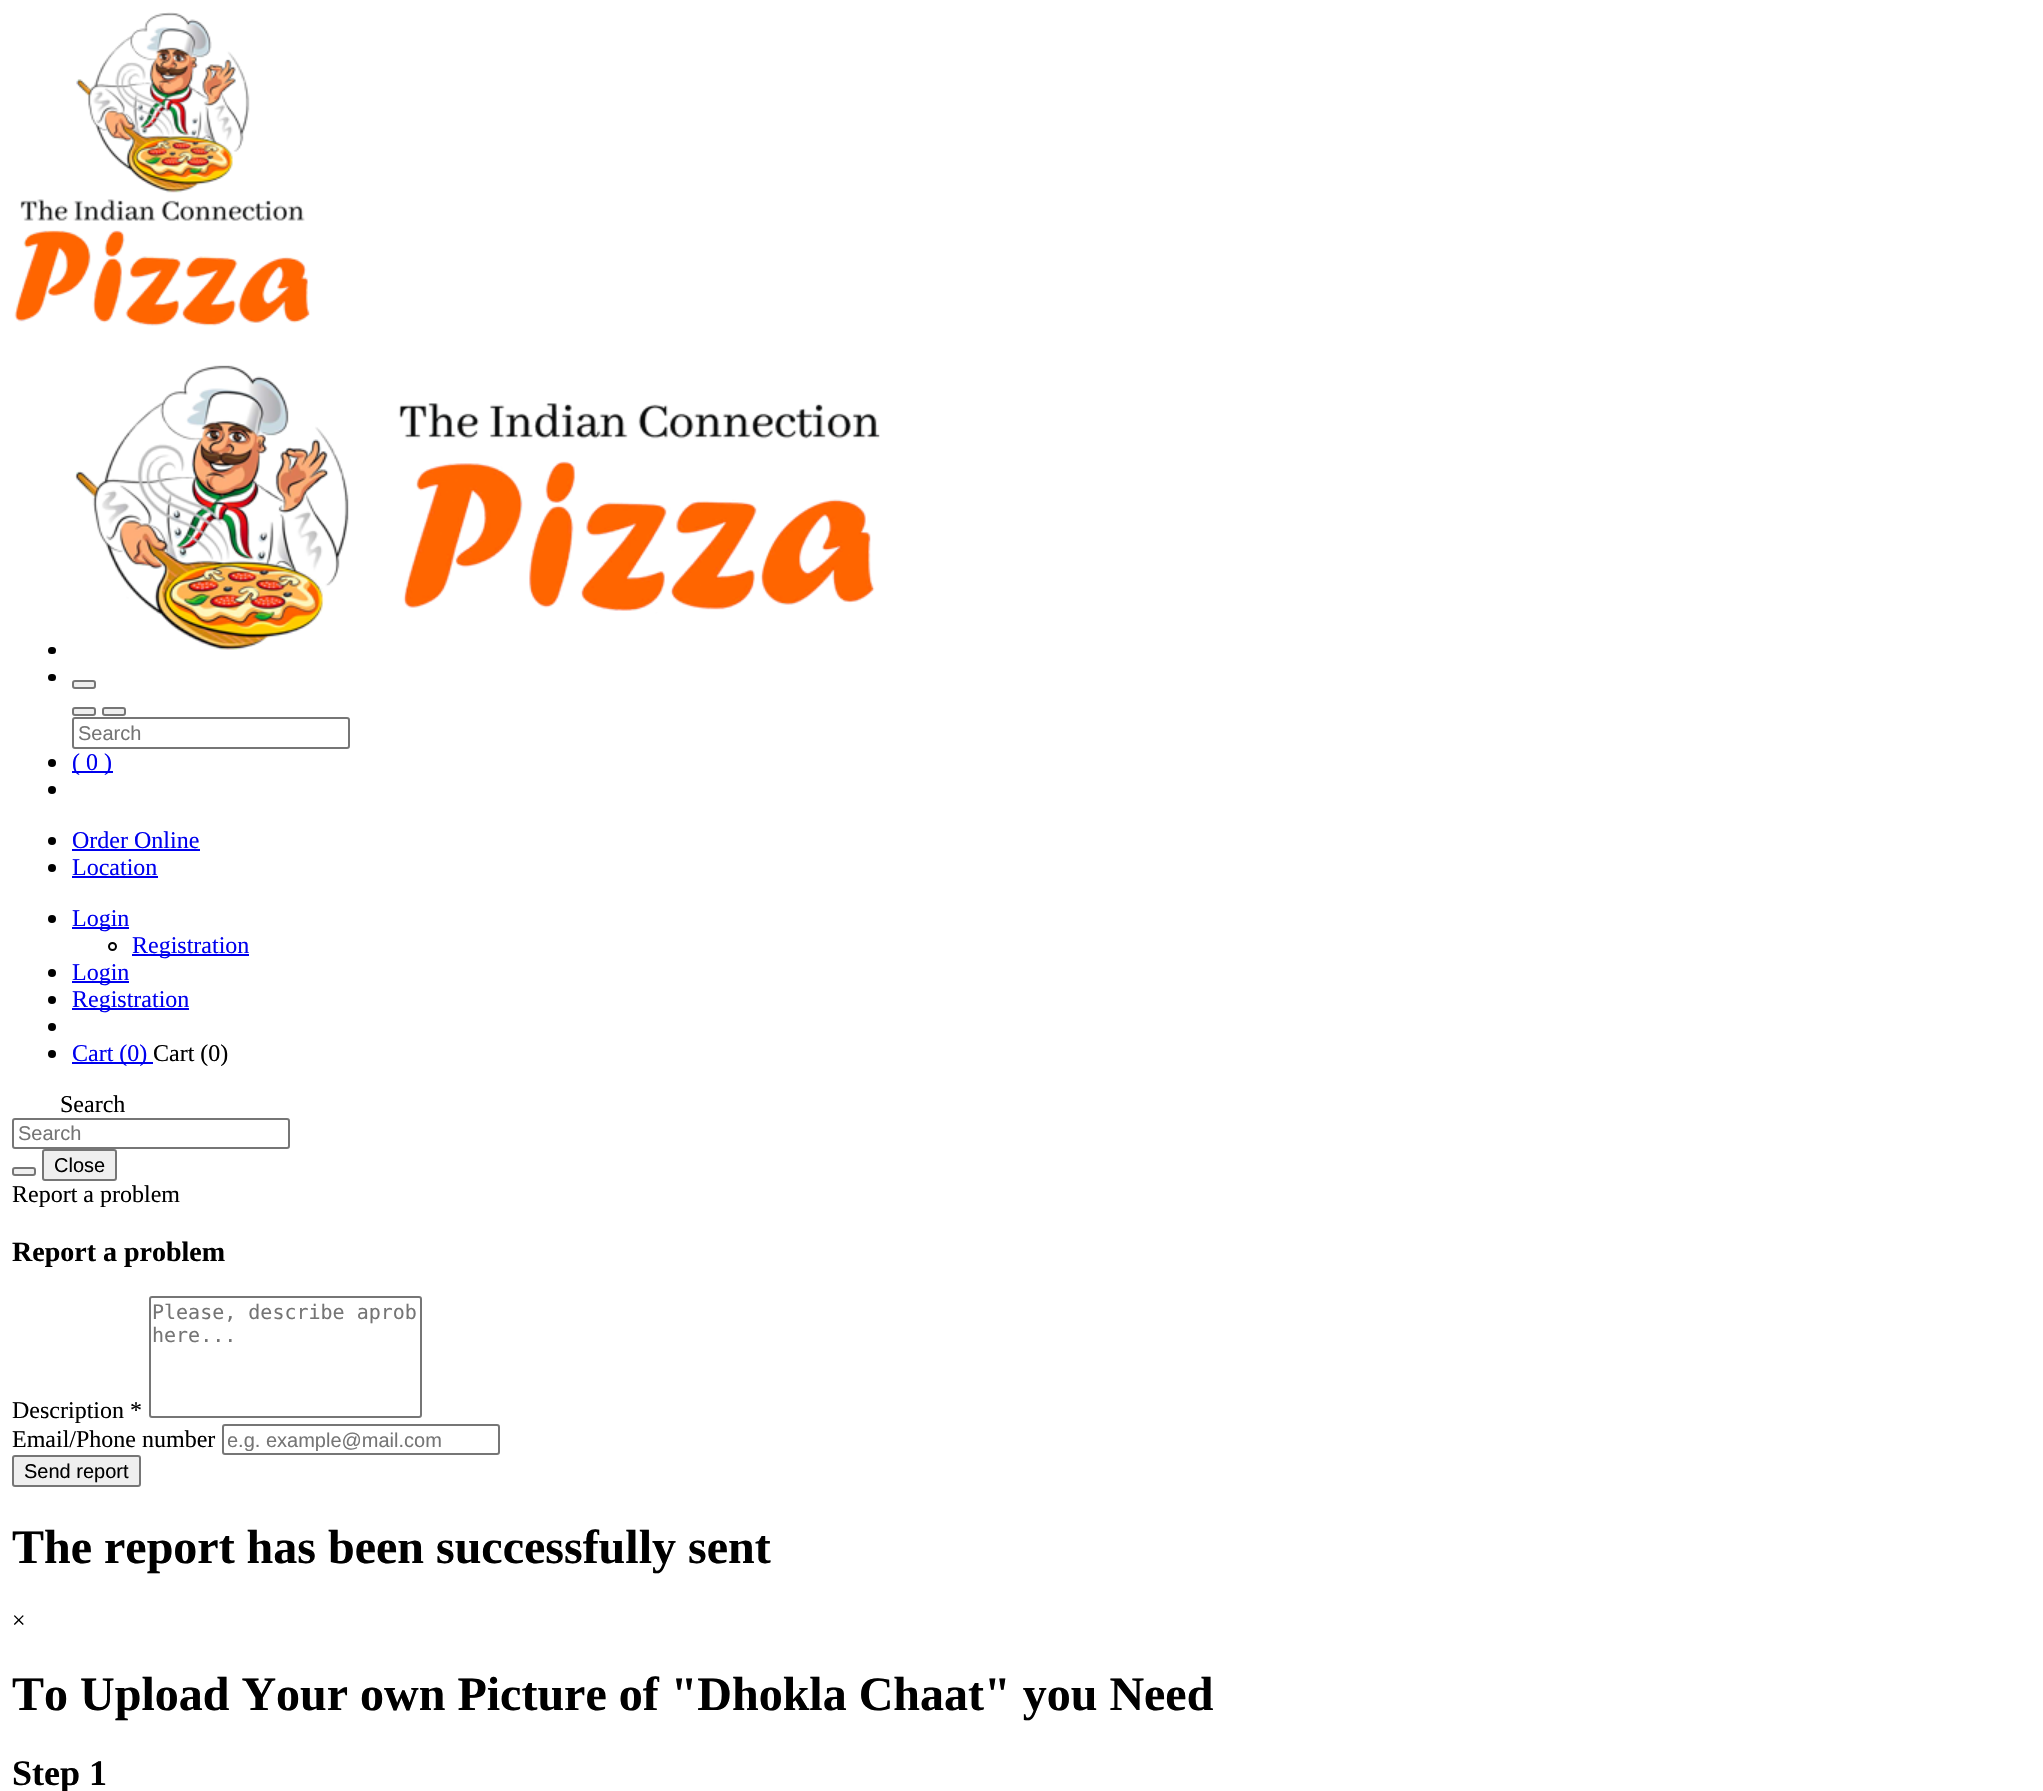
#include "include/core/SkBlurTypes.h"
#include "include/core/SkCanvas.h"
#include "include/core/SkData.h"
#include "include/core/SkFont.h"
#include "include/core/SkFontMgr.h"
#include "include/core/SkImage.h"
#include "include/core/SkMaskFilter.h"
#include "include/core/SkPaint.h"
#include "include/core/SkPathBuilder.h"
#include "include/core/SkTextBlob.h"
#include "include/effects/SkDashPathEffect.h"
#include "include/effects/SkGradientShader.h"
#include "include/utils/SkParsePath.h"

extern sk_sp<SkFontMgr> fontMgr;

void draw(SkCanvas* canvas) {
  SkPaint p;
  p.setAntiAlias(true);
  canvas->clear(SK_ColorWHITE);
  canvas->drawImageRect(SkImages::DeferredFromEncodedData(SkData::MakeFromFileName("images/1.png")), SkRect::MakeLTRB(14, 12, 310, 326), SkSamplingOptions());
  p.setColor(SK_ColorBLACK);
  canvas->drawRoundRect(SkRect::MakeLTRB(48, 647, 56, 654), 3.5f, 3.5f, p);
  canvas->drawImageRect(SkImages::DeferredFromEncodedData(SkData::MakeFromFileName("images/2.png")), SkRect::MakeLTRB(75, 365, 880, 650), SkSamplingOptions());
  canvas->drawRoundRect(SkRect::MakeLTRB(48, 674, 56, 681), 3.5f, 3.5f, p);
  p.setColor(SkColorSetRGB(239, 239, 239));
  canvas->drawRoundRect(SkRect::MakeLTRB(73, 681, 95, 688), 2, 2, p);
  p.setStyle(SkPaint::kStroke_Style);
  p.setStrokeWidth(2);
  p.setColor(SkColorSetRGB(118, 118, 118));
  canvas->drawRoundRect(SkRect::MakeLTRB(73, 681, 95, 688), 2, 2, p);
  p.setStyle(SkPaint::kFill_Style);
  p.setColor(SkColorSetRGB(239, 239, 239));
  canvas->drawRoundRect(SkRect::MakeLTRB(73, 708, 95, 715), 2, 2, p);
  p.setStyle(SkPaint::kStroke_Style);
  p.setColor(SkColorSetRGB(118, 118, 118));
  canvas->drawRoundRect(SkRect::MakeLTRB(73, 708, 95, 715), 2, 2, p);
  p.setStyle(SkPaint::kFill_Style);
  p.setColor(SkColorSetRGB(239, 239, 239));
  canvas->drawRoundRect(SkRect::MakeLTRB(103, 708, 125, 715), 2, 2, p);
  p.setStyle(SkPaint::kStroke_Style);
  p.setColor(SkColorSetRGB(118, 118, 118));
  canvas->drawRoundRect(SkRect::MakeLTRB(103, 708, 125, 715), 2, 2, p);
  canvas->drawRoundRect(SkRect::MakeLTRB(73, 718, 349, 748), 2, 2, p);
  p.setStyle(SkPaint::kFill_Style);
  p.setColor(SK_ColorBLACK);
  canvas->drawCircle(52, 763, 4, p);
  p.setColor(SkColorSetRGB(0, 0, 238));
  canvas->drawRect(SkRect::MakeLTRB(72, 771, 113, 773), p);
  p.setColor(SK_ColorBLACK);
  canvas->drawCircle(52, 790, 4, p);
  canvas->drawCircle(52, 841, 4, p);
  p.setColor(SkColorSetRGB(0, 0, 238));
  canvas->drawRect(SkRect::MakeLTRB(72, 849, 200, 851), p);
  p.setColor(SK_ColorBLACK);
  canvas->drawCircle(52, 868, 4, p);
  p.setColor(SkColorSetRGB(0, 0, 238));
  canvas->drawRect(SkRect::MakeLTRB(72, 876, 158, 878), p);
  p.setColor(SK_ColorBLACK);
  canvas->drawCircle(52, 919, 4, p);
  p.setColor(SkColorSetRGB(0, 0, 238));
  canvas->drawRect(SkRect::MakeLTRB(72, 927, 129, 929), p);
  p.setStyle(SkPaint::kStroke_Style);
  p.setColor(SK_ColorBLACK);
  canvas->drawCircle(112.5f, 946.5f, 3.5f, p);
  p.setStyle(SkPaint::kFill_Style);
  p.setColor(SkColorSetRGB(0, 0, 238));
  canvas->drawRect(SkRect::MakeLTRB(132, 954, 249, 956), p);
  p.setColor(SK_ColorBLACK);
  canvas->drawCircle(52, 973, 4, p);
  p.setColor(SkColorSetRGB(0, 0, 238));
  canvas->drawRect(SkRect::MakeLTRB(72, 981, 129, 983), p);
  p.setColor(SK_ColorBLACK);
  canvas->drawCircle(52, 1000, 4, p);
  p.setColor(SkColorSetRGB(0, 0, 238));
  canvas->drawRect(SkRect::MakeLTRB(72, 1008, 189, 1010), p);
  p.setColor(SK_ColorBLACK);
  canvas->drawCircle(52, 1027, 4, p);
  canvas->drawCircle(52, 1054, 4, p);
  p.setColor(SkColorSetRGB(0, 0, 238));
  canvas->drawRect(SkRect::MakeLTRB(72, 1062, 153, 1064), p);
  p.setStyle(SkPaint::kStroke_Style);
  p.setColor(SkColorSetRGB(118, 118, 118));
  canvas->drawRoundRect(SkRect::MakeLTRB(13, 1119, 289, 1148), 2, 2, p);
  p.setStyle(SkPaint::kFill_Style);
  p.setColor(SkColorSetRGB(239, 239, 239));
  canvas->drawRoundRect(SkRect::MakeLTRB(13, 1168, 35, 1175), 2, 2, p);
  p.setStyle(SkPaint::kStroke_Style);
  p.setColor(SkColorSetRGB(118, 118, 118));
  canvas->drawRoundRect(SkRect::MakeLTRB(13, 1168, 35, 1175), 2, 2, p);
  p.setStyle(SkPaint::kFill_Style);
  p.setColor(SkColorSetRGB(239, 239, 239));
  canvas->drawRoundRect(SkRect::MakeLTRB(43, 1150, 116, 1180), 2, 2, p);
  p.setStyle(SkPaint::kStroke_Style);
  p.setColor(SkColorSetRGB(118, 118, 118));
  canvas->drawRoundRect(SkRect::MakeLTRB(43, 1150, 116, 1180), 2, 2, p);
  canvas->drawRoundRect(SkRect::MakeLTRB(150, 1297, 421, 1417), 2, 2, p);
  canvas->drawRoundRect(SkRect::MakeLTRB(223, 1425, 499, 1454), 2, 2, p);
  p.setStyle(SkPaint::kFill_Style);
  p.setColor(SkColorSetRGB(239, 239, 239));
  canvas->drawRoundRect(SkRect::MakeLTRB(13, 1456, 140, 1486), 2, 2, p);
  p.setStyle(SkPaint::kStroke_Style);
  p.setColor(SkColorSetRGB(118, 118, 118));
  canvas->drawRoundRect(SkRect::MakeLTRB(13, 1456, 140, 1486), 2, 2, p);
  SkFont font1(fontMgr->matchFamilyStyle("Liberation Sans", SkFontStyle::Normal()), 20);
  font1.setSubpixel(true);
  p.setStyle(SkPaint::kFill_Style);
  p.setColor(SkColorSetRGB(117, 117, 117));
  canvas->drawString("Search", 78, 740, font1, p);
  SkFont font2(fontMgr->matchFamilyStyle("Liberation Serif", SkFontStyle::Normal()), 24);
  font2.setSubpixel(true);
  p.setColor(SkColorSetRGB(0, 0, 238));
  canvas->drawString("( 0 )", 72, 770, font2, p);
  canvas->drawString("Order Online", 72, 848, font2, p);
  canvas->drawString("Location", 72, 875, font2, p);
  canvas->drawString("Login", 72, 926, font2, p);
  canvas->drawString("Registration", 132, 953, font2, p);
  canvas->drawString("Login", 72, 980, font2, p);
  canvas->drawString("Registration", 72, 1007, font2, p);
  canvas->drawString("Cart (0)", 72, 1061, font2, p);
  p.setColor(SK_ColorBLACK);
  canvas->drawString("Cart (0)", 153, 1061, font2, p);
  canvas->drawString("Search", 60, 1112, font2, p);
  p.setColor(SkColorSetRGB(117, 117, 117));
  canvas->drawString("Search", 18, 1140, font1, p);
  p.setColor(SK_ColorBLACK);
  canvas->drawString("Close", 54, 1172, font1, p);
  canvas->drawString("Report a problem", 12, 1202, font2, p);
  SkFont font3(fontMgr->matchFamilyStyle("Liberation Serif", SkFontStyle::Bold()), 28);
  font3.setSubpixel(true);
  canvas->drawString("Report a problem", 12, 1261, font3, p);
  SkFont font4(fontMgr->matchFamilyStyle("DejaVu Sans Mono", SkFontStyle::Normal()), 20);
  font4.setSubpixel(true);
  p.setColor(SkColorSetRGB(117, 117, 117));
  canvas->drawString("Please, describe aprob", 152, 1319, font4, p);
  canvas->drawString("here...", 152, 1342, font4, p);
  p.setColor(SK_ColorBLACK);
  canvas->drawString("Description *", 12, 1418, font2, p);
  canvas->drawString("Email/Phone number", 12, 1447, font2, p);
  canvas->save();
  canvas->clipRect(SkRect::MakeLTRB(228, 1428, 494, 1451));
  p.setColor(SkColorSetRGB(117, 117, 117));
  canvas->drawString("e.g. example@mail.com", 227, 1447, font1, p);
  canvas->restore();
  p.setColor(SK_ColorBLACK);
  canvas->drawString("Send report", 24, 1478, font1, p);
  SkFont font5(fontMgr->matchFamilyStyle("Liberation Serif", SkFontStyle::Bold()), 48);
  font5.setSubpixel(true);
  canvas->drawString("The report has been successfully sent", 12, 1563, font5, p);
  canvas->drawString("×", 12, 1628, font2, p);
  canvas->drawString("To Upload Your own Picture of \"Dhokla Chaat\" you Need", 12, 1710, font5, p);
  SkFont font6(fontMgr->matchFamilyStyle("Liberation Serif", SkFontStyle::Bold()), 36);
  font6.setSubpixel(true);
  canvas->drawString("Step 1", 12, 1785, font6, p);
}
